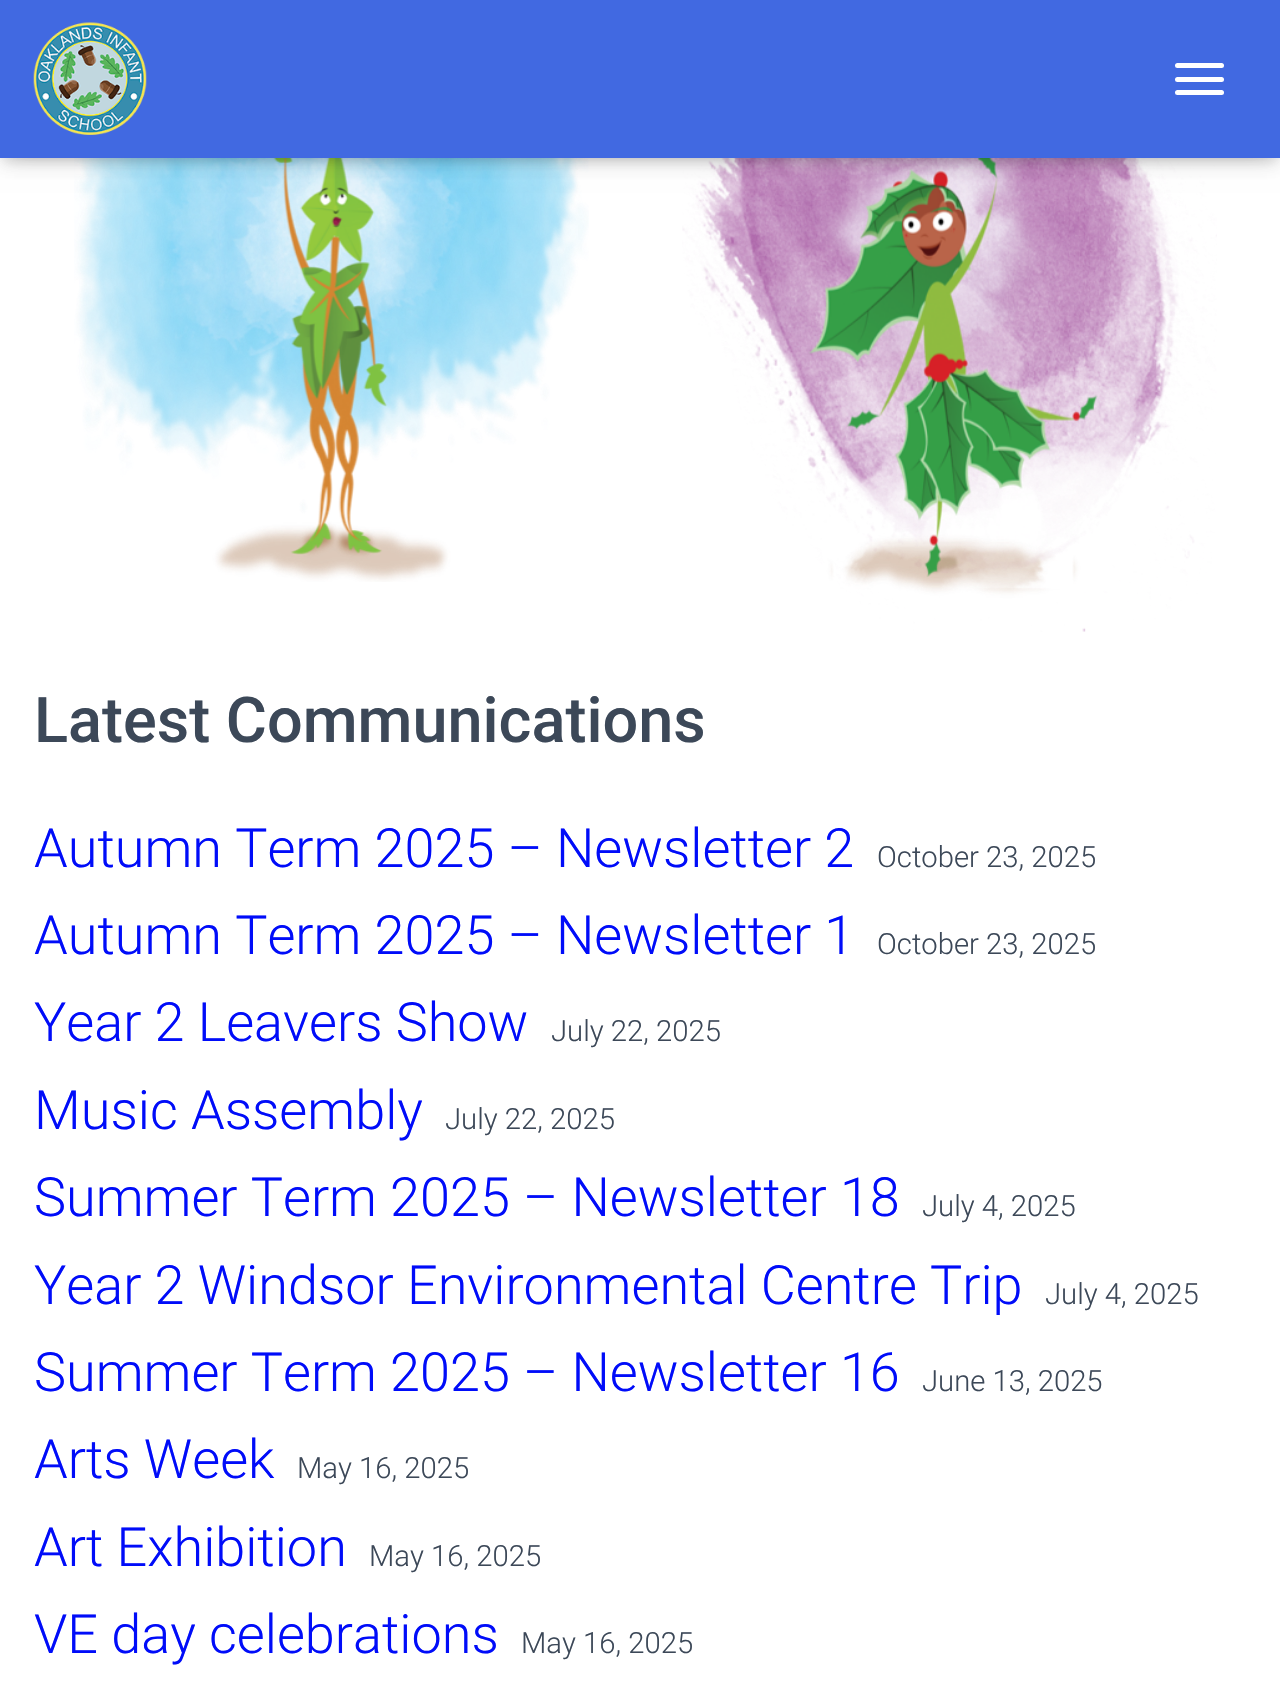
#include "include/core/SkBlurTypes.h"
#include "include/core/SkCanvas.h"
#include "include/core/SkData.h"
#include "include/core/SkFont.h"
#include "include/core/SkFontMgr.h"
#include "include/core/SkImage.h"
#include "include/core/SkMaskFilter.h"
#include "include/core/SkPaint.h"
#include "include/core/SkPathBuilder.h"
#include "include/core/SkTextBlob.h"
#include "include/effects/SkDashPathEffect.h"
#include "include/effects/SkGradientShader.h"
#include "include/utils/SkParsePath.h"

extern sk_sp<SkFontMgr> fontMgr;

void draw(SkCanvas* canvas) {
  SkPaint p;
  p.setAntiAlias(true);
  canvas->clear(SK_ColorWHITE);
  canvas->drawImageRect(SkImages::DeferredFromEncodedData(SkData::MakeFromFileName("images/2.png")), SkRect::MakeLTRB(74, 158, 589, 582), SkSamplingOptions());
  canvas->drawImageRect(SkImages::DeferredFromEncodedData(SkData::MakeFromFileName("images/3.png")), SkRect::MakeLTRB(682, 158, 1217, 632), SkSamplingOptions());
  p.setColor(SkColorSetARGB(26, 0, 0, 0));
  p.setMaskFilter(SkMaskFilter::MakeBlur(kNormal_SkBlurStyle, 5.5f));
  canvas->drawRect(SkRect::MakeLTRB(5, 14, 1276, 162), p);
  p.setMaskFilter(nullptr);
  p.setColor(SkColorSetARGB(31, 0, 0, 0));
  p.setMaskFilter(SkMaskFilter::MakeBlur(kNormal_SkBlurStyle, 11));
  canvas->drawRect(SkRect::MakeLTRB(0, 2, 1280, 160), p);
  p.setMaskFilter(nullptr);
  p.setColor(SkColorSetARGB(107, 0, 0, 0));
  p.setMaskFilter(SkMaskFilter::MakeBlur(kNormal_SkBlurStyle, 11));
  canvas->drawRect(SkRect::MakeLTRB(14, 16, 1267, 146), p);
  p.setMaskFilter(nullptr);
  p.setColor(SkColorSetRGB(65, 105, 225));
  canvas->drawRect(SkRect::MakeLTRB(0, 0, 1280, 158), p);
  canvas->drawImageRect(SkImages::DeferredFromEncodedData(SkData::MakeFromFileName("images/1.png")), SkRect::MakeLTRB(33, 22, 147, 135), SkSamplingOptions());
  p.setColor(SK_ColorWHITE);
  canvas->drawRoundRect(SkRect::MakeLTRB(1175, 63, 1224, 68), 2.5f, 2.5f, p);
  canvas->drawRoundRect(SkRect::MakeLTRB(1175, 77, 1224, 82), 2.5f, 2.5f, p);
  canvas->drawRoundRect(SkRect::MakeLTRB(1175, 90, 1224, 95), 2.5f, 2.5f, p);
  SkFont font1(fontMgr->matchFamilyStyle("Roboto", SkFontStyle(500, SkFontStyle::kNormal_Width, SkFontStyle::kUpright_Slant)), 63);
  font1.setSubpixel(true);
  p.setColor(SkColorSetRGB(60, 72, 88));
  canvas->drawString("Latest Communications", 34, 742, font1, p);
  SkFont font2(fontMgr->matchFamilyStyle("Roboto", SkFontStyle(300, SkFontStyle::kNormal_Width, SkFontStyle::kUpright_Slant)), 54);
  font2.setSubpixel(true);
  p.setColor(SkColorSetRGB(0, 12, 249));
  canvas->drawString("Autumn Term 2025 – Newsletter 2", 34, 867, font2, p);
  SkFont font3(fontMgr->matchFamilyStyle("Roboto", SkFontStyle(300, SkFontStyle::kNormal_Width, SkFontStyle::kUpright_Slant)), 29.25f);
  font3.setSubpixel(true);
  p.setColor(SkColorSetRGB(60, 72, 88));
  canvas->drawString("October 23, 2025", 877, 867, font3, p);
  p.setColor(SkColorSetRGB(0, 12, 249));
  canvas->drawString("Autumn Term 2025 – Newsletter 1", 34, 954, font2, p);
  p.setColor(SkColorSetRGB(60, 72, 88));
  canvas->drawString("October 23, 2025", 877, 954, font3, p);
  p.setColor(SkColorSetRGB(0, 12, 249));
  canvas->drawString("Year 2 Leavers Show", 34, 1041, font2, p);
  p.setColor(SkColorSetRGB(60, 72, 88));
  canvas->drawString("July 22, 2025", 551, 1041, font3, p);
  p.setColor(SkColorSetRGB(0, 12, 249));
  canvas->drawString("Music Assembly", 34, 1129, font2, p);
  p.setColor(SkColorSetRGB(60, 72, 88));
  canvas->drawString("July 22, 2025", 445, 1129, font3, p);
  p.setColor(SkColorSetRGB(0, 12, 249));
  canvas->drawString("Summer Term 2025 – Newsletter 18", 34, 1216, font2, p);
  p.setColor(SkColorSetRGB(60, 72, 88));
  canvas->drawString("July 4, 2025", 922, 1216, font3, p);
  p.setColor(SkColorSetRGB(0, 12, 249));
  canvas->drawString("Year 2 Windsor Environmental Centre Trip", 34, 1304, font2, p);
  p.setColor(SkColorSetRGB(60, 72, 88));
  canvas->drawString("July 4, 2025", 1045, 1304, font3, p);
  p.setColor(SkColorSetRGB(0, 12, 249));
  canvas->drawString("Summer Term 2025 – Newsletter 16", 34, 1391, font2, p);
  p.setColor(SkColorSetRGB(60, 72, 88));
  canvas->drawString("June 13, 2025", 922, 1391, font3, p);
  p.setColor(SkColorSetRGB(0, 12, 249));
  canvas->drawString("Arts Week", 34, 1478, font2, p);
  p.setColor(SkColorSetRGB(60, 72, 88));
  canvas->drawString("May 16, 2025", 297, 1478, font3, p);
  p.setColor(SkColorSetRGB(0, 12, 249));
  canvas->drawString("Art Exhibition", 34, 1566, font2, p);
  p.setColor(SkColorSetRGB(60, 72, 88));
  canvas->drawString("May 16, 2025", 369, 1566, font3, p);
  p.setColor(SkColorSetRGB(0, 12, 249));
  canvas->drawString("VE day celebrations", 34, 1653, font2, p);
  p.setColor(SkColorSetRGB(60, 72, 88));
  canvas->drawString("May 16, 2025", 521, 1653, font3, p);
}
